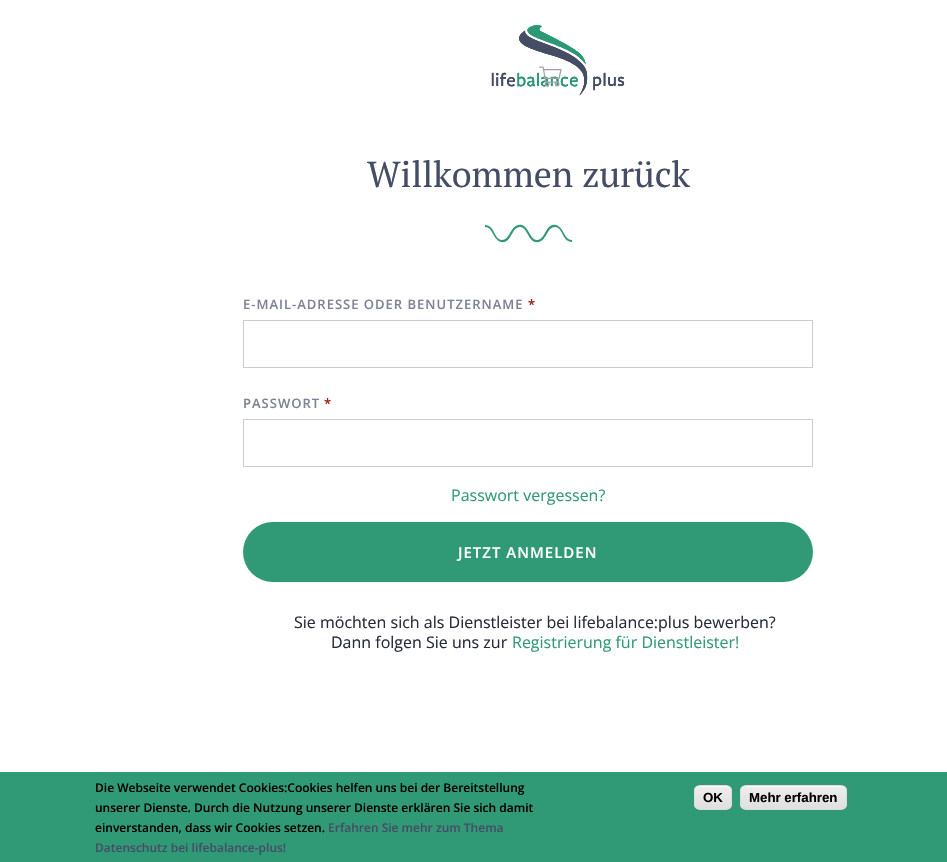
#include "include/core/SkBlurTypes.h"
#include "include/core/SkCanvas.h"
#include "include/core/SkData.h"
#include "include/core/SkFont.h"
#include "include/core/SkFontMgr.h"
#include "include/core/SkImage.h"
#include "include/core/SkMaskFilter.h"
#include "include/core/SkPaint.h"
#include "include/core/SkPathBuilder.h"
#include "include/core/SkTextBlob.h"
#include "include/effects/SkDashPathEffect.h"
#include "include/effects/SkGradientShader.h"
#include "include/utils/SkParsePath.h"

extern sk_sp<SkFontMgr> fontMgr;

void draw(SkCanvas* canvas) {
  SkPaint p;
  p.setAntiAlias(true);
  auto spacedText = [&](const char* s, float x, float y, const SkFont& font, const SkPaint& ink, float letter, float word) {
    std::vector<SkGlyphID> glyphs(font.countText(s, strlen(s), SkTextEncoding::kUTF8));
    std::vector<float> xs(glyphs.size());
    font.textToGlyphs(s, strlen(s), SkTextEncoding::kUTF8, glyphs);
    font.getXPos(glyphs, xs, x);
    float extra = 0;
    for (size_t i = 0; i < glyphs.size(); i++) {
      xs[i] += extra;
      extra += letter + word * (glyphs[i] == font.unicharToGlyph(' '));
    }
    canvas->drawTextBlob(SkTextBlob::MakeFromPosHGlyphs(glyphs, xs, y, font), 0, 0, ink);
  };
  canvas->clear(SK_ColorWHITE);
  canvas->drawImageRect(SkImages::DeferredFromEncodedData(SkData::MakeFromFileName("images/1.png")), SkRect::MakeLTRB(491, 25, 625, 96), SkSamplingOptions());
  canvas->drawImageRect(SkImages::DeferredFromEncodedData(SkData::MakeFromFileName("images/2.png")), SkRect::MakeLTRB(539, 66, 562, 87), SkSamplingOptions());
  p.setColor(SkColorSetRGB(48, 153, 117));
  canvas->drawPath(SkPathBuilder().moveTo(572, 242).cubicTo(562, 242, 563, 227, 555, 227).cubicTo(546, 227, 547, 244, 535, 242).cubicTo(528, 240, 527, 227, 520, 227).cubicTo(511, 227, 512, 244, 501, 242).cubicTo(493, 240, 493, 227, 485, 227).lineTo(485, 225).cubicTo(495, 225, 494, 240, 502, 240).cubicTo(511, 240, 510, 223, 522, 225).cubicTo(529, 227, 530, 240, 537, 240).cubicTo(546, 240, 545, 223, 556, 225).cubicTo(564, 227, 564, 240, 572, 240).close().detach(), p);
  p.setStyle(SkPaint::kStroke_Style);
  p.setStrokeWidth(1);
  p.setColor(SkColorSetRGB(204, 204, 204));
  canvas->drawRect(SkRect::MakeLTRB(243.5f, 320.5f, 812.5f, 367.5f), p);
  canvas->drawRect(SkRect::MakeLTRB(243.5f, 419.5f, 812.5f, 466.5f), p);
  p.setStyle(SkPaint::kFill_Style);
  p.setColor(SkColorSetRGB(48, 153, 117));
  canvas->drawRoundRect(SkRect::MakeLTRB(243, 522, 813, 582), 30, 30, p);
  canvas->drawRect(SkRect::MakeLTRB(0, 772, 947, 862), p);
  canvas->save();
  canvas->clipPath(SkPathBuilder().moveTo(700, 785).lineTo(726, 785).cubicTo(729.5f, 785, 732, 787.5f, 732, 791).lineTo(732, 804).cubicTo(732, 807.5f, 729.5f, 810, 726, 810).lineTo(700, 810).cubicTo(696.5f, 810, 694, 807.5f, 694, 804).lineTo(694, 791).cubicTo(694, 787.5f, 696.5f, 785, 700, 785).close().detach(), true);
  {
    const SkColor colors[] = {SkColorSetRGB(237, 237, 237), SkColorSetRGB(223, 223, 223)};
    const float stops[] = {0.05f, 1};
    const SkPoint ends[] = {{713, 786}, {713, 809}};
    p.setShader(SkGradientShader::MakeLinear(ends, colors, stops, 2, SkTileMode::kClamp));
    p.setAlpha(255);
  }
  canvas->drawRect(SkRect::MakeLTRB(694, 786, 732, 809), p);
  canvas->restore();
  p.setShader(nullptr);
  p.setColor(SK_ColorWHITE);
  canvas->drawPath(SkPathBuilder(SkPathFillType::kEvenOdd).moveTo(700, 787).lineTo(722, 787).cubicTo(729.5f, 787, 731, 788, 731, 792.5f).cubicTo(731, 786, 727.5f, 786, 721.5f, 786).lineTo(704.5f, 786).cubicTo(697.5f, 786, 695, 786, 695, 793).cubicTo(695, 790, 696, 787, 700, 787).close().moveTo(731, 804).lineTo(731, 805).close().detach(), p);
  p.setStyle(SkPaint::kStroke_Style);
  p.setColor(SkColorSetRGB(220, 220, 220));
  canvas->drawRoundRect(SkRect::MakeLTRB(694.5f, 785.5f, 731.5f, 809.5f), 5.5f, 5.5f, p);
  canvas->save();
  canvas->clipPath(SkPathBuilder().moveTo(746, 785).lineTo(841, 785).cubicTo(844.5f, 785, 847, 787.5f, 847, 791).lineTo(847, 804).cubicTo(847, 807.5f, 844.5f, 810, 841, 810).lineTo(746, 810).cubicTo(742.5f, 810, 740, 807.5f, 740, 804).lineTo(740, 791).cubicTo(740, 787.5f, 742.5f, 785, 746, 785).close().detach(), true);
  p.setStyle(SkPaint::kFill_Style);
  {
    const SkColor colors[] = {SkColorSetRGB(237, 237, 237), SkColorSetRGB(223, 223, 223)};
    const float stops[] = {0.05f, 1};
    const SkPoint ends[] = {{794, 786}, {794, 809}};
    p.setShader(SkGradientShader::MakeLinear(ends, colors, stops, 2, SkTileMode::kClamp));
    p.setAlpha(255);
  }
  canvas->drawRect(SkRect::MakeLTRB(740, 786, 847, 809), p);
  canvas->restore();
  p.setShader(nullptr);
  p.setColor(SK_ColorWHITE);
  canvas->drawPath(SkPathBuilder().moveTo(746, 787).lineTo(841, 787).cubicTo(844, 787, 846, 789, 846, 792).cubicTo(846, 782, 830, 786, 825, 786).lineTo(762, 786).cubicTo(757, 786, 741, 782, 741, 792).cubicTo(741, 789, 743, 787, 746, 787).close().detach(), p);
  p.setStyle(SkPaint::kStroke_Style);
  p.setColor(SkColorSetRGB(220, 220, 220));
  canvas->drawRoundRect(SkRect::MakeLTRB(740.5f, 785.5f, 846.5f, 809.5f), 5.5f, 5.5f, p);
  SkFont font1(fontMgr->matchFamilyStyle("PT Serif", SkFontStyle::Normal()), 36);
  font1.setSubpixel(true);
  p.setStyle(SkPaint::kFill_Style);
  p.setColor(SkColorSetRGB(69, 77, 102));
  canvas->drawString("Willkommen zurück", 367, 187, font1, p);
  SkFont font2(fontMgr->matchFamilyStyle("Open Sans", SkFontStyle(600, SkFontStyle::kNormal_Width, SkFontStyle::kUpright_Slant)), 13);
  font2.setSubpixel(true);
  p.setColor(SkColorSetRGB(125, 130, 148));
  spacedText("E-MAIL-ADRESSE ODER BENUTZERNAME", 243, 309, font2, p, 1, 0);
  p.setColor(SkColorSetRGB(153, 36, 23));
  spacedText("*", 528, 309, font2, p, 1, 0);
  p.setColor(SkColorSetRGB(125, 130, 148));
  spacedText("PASSWORT", 243, 408, font2, p, 1, 0);
  p.setColor(SkColorSetRGB(153, 36, 23));
  spacedText("*", 324, 408, font2, p, 1, 0);
  SkFont font3(fontMgr->matchFamilyStyle("Open Sans", SkFontStyle::Normal()), 16);
  font3.setSubpixel(true);
  p.setColor(SkColorSetRGB(48, 153, 117));
  canvas->drawString("Passwort vergessen?", 451, 501, font3, p);
  SkFont font4(fontMgr->matchFamilyStyle("Open Sans", SkFontStyle(600, SkFontStyle::kNormal_Width, SkFontStyle::kUpright_Slant)), 15);
  font4.setSubpixel(true);
  p.setColor(SK_ColorWHITE);
  spacedText("JETZT ANMELDEN", 458, 558, font4, p, 1, 0);
  p.setColor(SkColorSetRGB(38, 42, 57));
  canvas->drawString("Sie möchten sich als Dienstleister bei lifebalance:plus bewerben?", 294, 628, font3, p);
  canvas->drawString("Dann folgen Sie uns zur", 331, 648, font3, p);
  p.setColor(SkColorSetRGB(48, 153, 117));
  canvas->drawString("Registrierung für Dienstleister!", 512, 648, font3, p);
  SkFont font5(fontMgr->matchFamilyStyle("Open Sans", SkFontStyle(600, SkFontStyle::kNormal_Width, SkFontStyle::kUpright_Slant)), 12);
  font5.setSubpixel(true);
  p.setColor(SK_ColorBLACK);
  canvas->drawString("Die Webseite verwendet Cookies:Cookies helfen uns bei der Bereitstellung", 95, 792, font5, p);
  canvas->drawString("unserer Dienste. Durch die Nutzung unserer Dienste erklären Sie sich damit", 95, 812, font5, p);
  canvas->drawString("einverstanden, dass wir Cookies setzen.", 95, 832, font5, p);
  p.setColor(SkColorSetRGB(69, 77, 102));
  canvas->drawString("Erfahren Sie mehr zum Thema", 328, 832, font5, p);
  canvas->drawString("Datenschutz bei lifebalance-plus!", 95, 852, font5, p);
  SkFont font6(fontMgr->matchFamilyStyle("Liberation Sans", SkFontStyle::Bold()), 13.25f);
  font6.setSubpixel(true);
  p.setColor(SK_ColorBLACK);
  canvas->drawString("OK", 703, 802, font6, p);
  canvas->drawString("Mehr erfahren", 749, 802, font6, p);
}
